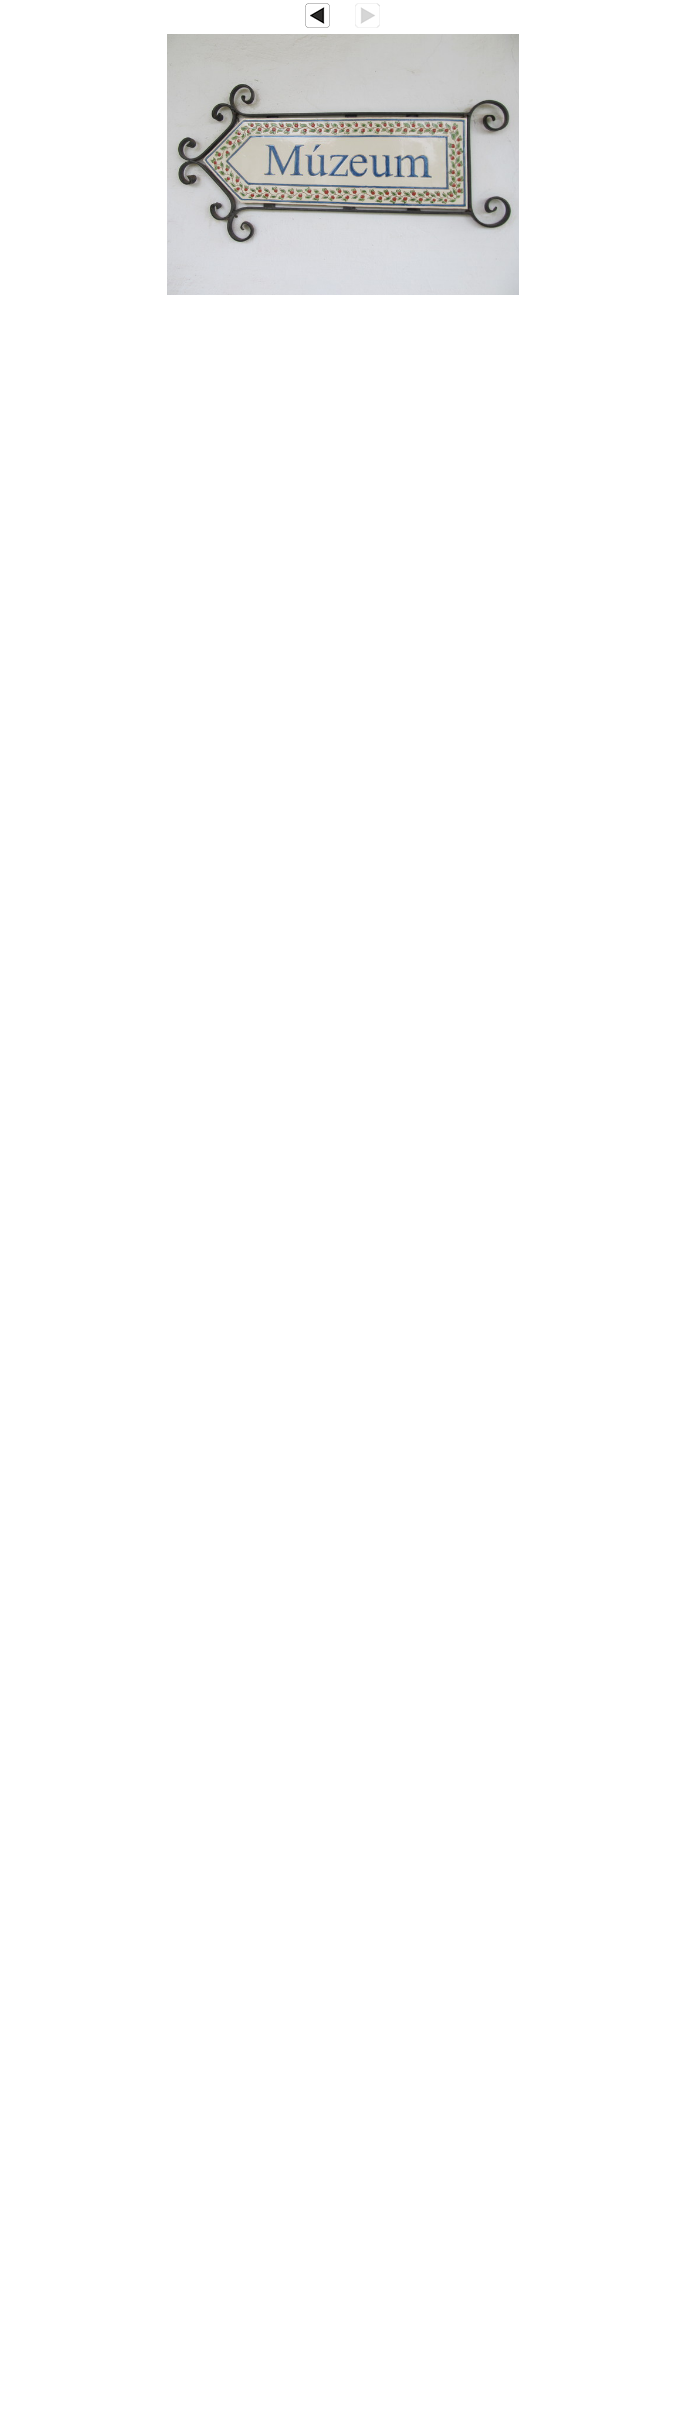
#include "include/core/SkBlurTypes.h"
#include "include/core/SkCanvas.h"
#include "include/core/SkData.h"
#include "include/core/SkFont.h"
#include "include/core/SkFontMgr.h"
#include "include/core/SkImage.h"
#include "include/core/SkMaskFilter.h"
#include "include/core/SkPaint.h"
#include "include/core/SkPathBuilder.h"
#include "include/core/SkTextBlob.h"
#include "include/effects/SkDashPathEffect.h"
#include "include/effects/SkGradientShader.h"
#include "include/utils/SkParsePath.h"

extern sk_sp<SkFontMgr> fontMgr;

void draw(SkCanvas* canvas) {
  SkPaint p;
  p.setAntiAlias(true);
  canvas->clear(SK_ColorWHITE);
  canvas->drawImageRect(SkImages::DeferredFromEncodedData(SkData::MakeFromFileName("images/1.png")), SkRect::MakeLTRB(305, 3, 330, 28), SkSamplingOptions());
  canvas->drawImageRect(SkImages::DeferredFromEncodedData(SkData::MakeFromFileName("images/2.png")), SkRect::MakeLTRB(355, 3, 380, 28), SkSamplingOptions());
  canvas->drawImageRect(SkImages::DeferredFromEncodedData(SkData::MakeFromFileName("images/3.png")), SkRect::MakeLTRB(167, 34, 519, 295), SkSamplingOptions());
}
